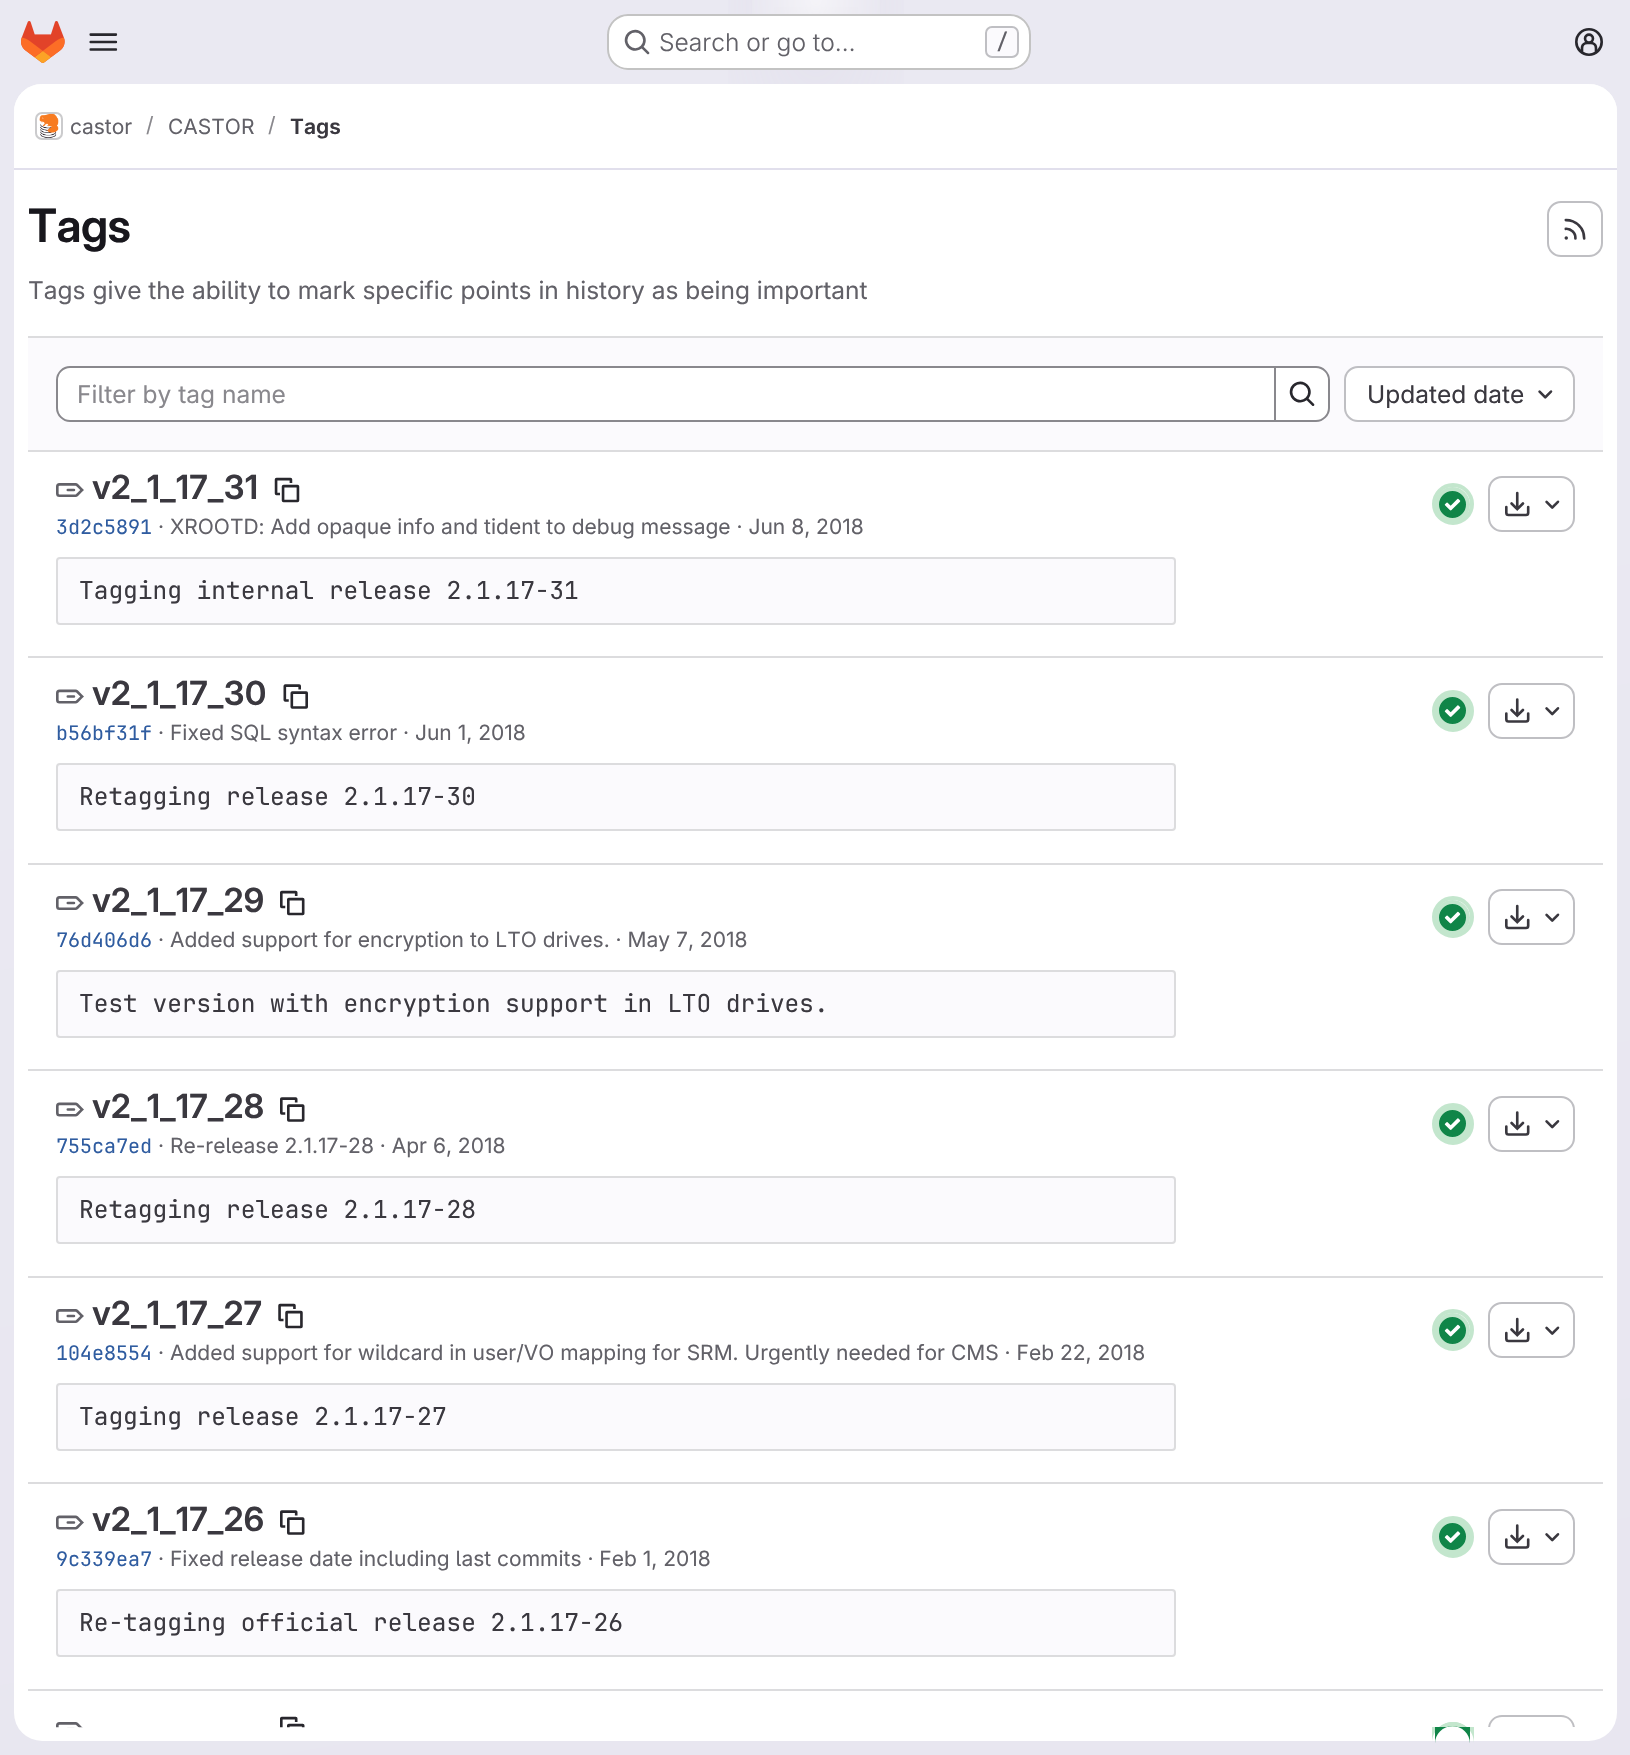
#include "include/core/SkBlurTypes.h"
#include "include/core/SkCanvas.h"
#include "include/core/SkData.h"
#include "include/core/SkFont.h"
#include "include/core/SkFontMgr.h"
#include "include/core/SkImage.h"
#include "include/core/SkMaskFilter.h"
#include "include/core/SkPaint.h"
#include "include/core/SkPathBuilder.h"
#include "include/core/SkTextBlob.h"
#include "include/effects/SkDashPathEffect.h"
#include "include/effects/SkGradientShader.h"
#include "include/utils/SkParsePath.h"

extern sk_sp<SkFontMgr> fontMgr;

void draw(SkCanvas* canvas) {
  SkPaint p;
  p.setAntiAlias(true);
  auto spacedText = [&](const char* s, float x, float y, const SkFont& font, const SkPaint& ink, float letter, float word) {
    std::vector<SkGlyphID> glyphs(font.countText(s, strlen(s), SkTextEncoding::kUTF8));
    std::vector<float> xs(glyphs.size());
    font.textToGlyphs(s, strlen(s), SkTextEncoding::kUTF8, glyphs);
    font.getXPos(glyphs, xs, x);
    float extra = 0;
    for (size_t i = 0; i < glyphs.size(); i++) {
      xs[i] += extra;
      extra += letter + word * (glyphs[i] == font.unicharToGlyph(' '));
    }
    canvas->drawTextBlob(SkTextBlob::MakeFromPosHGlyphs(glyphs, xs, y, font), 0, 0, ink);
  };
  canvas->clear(SK_ColorWHITE);
  {
    const SkColor colors[] = {SkColorSetRGB(232, 230, 240), SkColorSetRGB(234, 233, 242)};
    const float stops[] = {0, 0.7f};
    const SkPoint ends[] = {{990, 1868}, {641, -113}};
    p.setShader(SkGradientShader::MakeLinear(ends, colors, stops, 2, SkTileMode::kClamp));
    p.setAlpha(255);
  }
  canvas->drawRect(SkRect::MakeLTRB(0, 0, 1630, 1755), p);
  {
    const SkColor colors[] = {SkColorSetRGB(228, 226, 237), SkColorSetARGB(0, 228, 226, 237)};
    const float stops[] = {0, 0.15f};
    SkMatrix m = SkMatrix::Translate(816, 0).preScale(816, 1755);
    p.setShader(SkGradientShader::MakeRadial({0, 0}, 1, colors, stops, 2, SkTileMode::kClamp, 0, &m));
    p.setAlpha(255);
  }
  canvas->drawRect(SkRect::MakeLTRB(728, 0, 904, 84), p);
  {
    const SkColor colors[] = {SkColorSetRGB(228, 226, 236), SkColorSetARGB(0, 228, 226, 236)};
    const float stops[] = {0, 0.11f};
    SkMatrix m = SkMatrix::Translate(816, 0).preScale(816, 1755);
    p.setShader(SkGradientShader::MakeRadial({0, 0}, 1, colors, stops, 2, SkTileMode::kClamp, 0, &m));
    p.setAlpha(255);
  }
  canvas->drawRect(SkRect::MakeLTRB(774, 7, 858, 60), p);
  {
    const SkColor colors[] = {SkColorSetARGB(153, 255, 255, 255), SkColorSetARGB(0, 255, 255, 255)};
    const float stops[] = {0, 0.04f};
    p.setShader(SkGradientShader::MakeRadial({816, 0}, 1935, colors, stops, 2, SkTileMode::kClamp));
    p.setAlpha(255);
  }
  canvas->drawRect(SkRect::MakeLTRB(752, 0, 880, 65), p);
  canvas->drawImageRect(SkImages::DeferredFromEncodedData(SkData::MakeFromFileName("images/1.png")), SkRect::MakeLTRB(21, 21, 65, 63), SkSamplingOptions());
  canvas->drawImageRect(SkImages::DeferredFromEncodedData(SkData::MakeFromFileName("images/2.png")), SkRect::MakeLTRB(89, 33, 118, 51), SkSamplingOptions());
  p.setShader(nullptr);
  p.setColor(SK_ColorWHITE);
  canvas->drawRoundRect(SkRect::MakeLTRB(607, 14, 1031, 70), 21, 21, p);
  p.setStyle(SkPaint::kStroke_Style);
  p.setStrokeWidth(2);
  p.setColor(SkColorSetARGB(61, 5, 5, 6));
  canvas->drawRoundRect(SkRect::MakeLTRB(608, 15, 1030, 69), 20, 20, p);
  canvas->drawImageRect(SkImages::DeferredFromEncodedData(SkData::MakeFromFileName("images/3.png")), SkRect::MakeLTRB(624, 29, 650, 55), SkSamplingOptions());
  p.setStyle(SkPaint::kFill_Style);
  p.setColor(SkColorSetRGB(251, 250, 253));
  canvas->drawRoundRect(SkRect::MakeLTRB(986, 27, 1018, 57), 6, 6, p);
  p.setStyle(SkPaint::kStroke_Style);
  p.setColor(SkColorSetRGB(191, 191, 195));
  canvas->drawRoundRect(SkRect::MakeLTRB(986, 27, 1018, 57), 6, 6, p);
  canvas->drawImageRect(SkImages::DeferredFromEncodedData(SkData::MakeFromFileName("images/4.png")), SkRect::MakeLTRB(1575, 28, 1603, 56), SkSamplingOptions());
  p.setStyle(SkPaint::kFill_Style);
  p.setColor(SK_ColorWHITE);
  canvas->drawRoundRect(SkRect::MakeLTRB(14, 84, 1617, 1741), 28, 28, p);
  canvas->drawPath(SkPathBuilder().moveTo(42, 84).lineTo(1589, 84).cubicTo(1604.5f, 84, 1617, 96.5f, 1617, 112).lineTo(1617, 170).lineTo(14, 170).lineTo(14, 112).cubicTo(14, 96.5f, 26.5f, 84, 42, 84).close().detach(), p);
  p.setColor(SkColorSetRGB(225, 223, 236));
  canvas->drawRect(SkRect::MakeLTRB(14, 168, 1617, 170), p);
  p.setStyle(SkPaint::kStroke_Style);
  p.setColor(SkColorSetRGB(220, 220, 222));
  canvas->drawRoundRect(SkRect::MakeLTRB(36, 113, 62, 139), 6, 6, p);
  canvas->drawImageRect(SkImages::DeferredFromEncodedData(SkData::MakeFromFileName("images/5.png")), SkRect::MakeLTRB(39, 113, 59, 138), SkSamplingOptions());
  p.setColor(SkColorSetARGB(20, 5, 5, 6));
  canvas->drawRoundRect(SkRect::MakeLTRB(36, 113, 62, 139), 6, 6, p);
  p.setColor(SkColorSetRGB(191, 191, 195));
  canvas->drawRoundRect(SkRect::MakeLTRB(1548, 202, 1602, 256), 13, 13, p);
  canvas->drawImageRect(SkImages::DeferredFromEncodedData(SkData::MakeFromFileName("images/6.png")), SkRect::MakeLTRB(1564, 218, 1586, 240), SkSamplingOptions());
  p.setStyle(SkPaint::kFill_Style);
  p.setColor(SkColorSetRGB(251, 250, 253));
  canvas->drawRect(SkRect::MakeLTRB(28, 338, 1603, 450), p);
  p.setColor(SkColorSetRGB(220, 220, 222));
  canvas->drawRect(SkRect::MakeLTRB(28, 336, 1603, 338), p);
  canvas->drawRect(SkRect::MakeLTRB(28, 450, 1603, 452), p);
  p.setColor(SK_ColorWHITE);
  canvas->drawPath(SkPathBuilder().moveTo(70, 367).lineTo(1275, 367).lineTo(1275, 421).lineTo(70, 421).cubicTo(63, 421, 57, 415, 57, 408).lineTo(57, 380).cubicTo(57, 373, 63, 367, 70, 367).close().detach(), p);
  p.setStyle(SkPaint::kStroke_Style);
  p.setColor(SkColorSetRGB(137, 136, 141));
  canvas->drawPath(SkPathBuilder().moveTo(70, 367).lineTo(1275, 367).lineTo(1275, 421).lineTo(70, 421).cubicTo(63, 421, 57, 415, 57, 408).lineTo(57, 380).cubicTo(57, 373, 63, 367, 70, 367).close().detach(), p);
  p.setStyle(SkPaint::kFill_Style);
  p.setColor(SK_ColorWHITE);
  canvas->drawPath(SkPathBuilder().moveTo(1275, 367).lineTo(1316, 367).cubicTo(1323, 367, 1329, 373, 1329, 380).lineTo(1329, 408).cubicTo(1329, 415, 1323, 421, 1316, 421).lineTo(1275, 421).close().detach(), p);
  p.setStyle(SkPaint::kStroke_Style);
  p.setColor(SkColorSetRGB(137, 136, 141));
  canvas->drawPath(SkPathBuilder().moveTo(1275, 367).lineTo(1316, 367).cubicTo(1323, 367, 1329, 373, 1329, 380).lineTo(1329, 408).cubicTo(1329, 415, 1323, 421, 1316, 421).lineTo(1275, 421).close().detach(), p);
  canvas->drawImageRect(SkImages::DeferredFromEncodedData(SkData::MakeFromFileName("images/7.png")), SkRect::MakeLTRB(1289, 381, 1315, 406), SkSamplingOptions());
  p.setStyle(SkPaint::kFill_Style);
  p.setColor(SK_ColorWHITE);
  canvas->drawRoundRect(SkRect::MakeLTRB(1345, 367, 1574, 421), 13, 13, p);
  p.setStyle(SkPaint::kStroke_Style);
  p.setColor(SkColorSetRGB(191, 191, 195));
  canvas->drawRoundRect(SkRect::MakeLTRB(1345, 367, 1574, 421), 13, 13, p);
  canvas->drawImageRect(SkImages::DeferredFromEncodedData(SkData::MakeFromFileName("images/8.png")), SkRect::MakeLTRB(1538, 390, 1553, 399), SkSamplingOptions());
  p.setStyle(SkPaint::kFill_Style);
  p.setColor(SkColorSetRGB(220, 220, 222));
  canvas->drawRect(SkRect::MakeLTRB(28, 656, 1603, 658), p);
  canvas->drawImageRect(SkImages::DeferredFromEncodedData(SkData::MakeFromFileName("images/9.png")), SkRect::MakeLTRB(56, 483, 84, 497), SkSamplingOptions());
  canvas->drawImageRect(SkImages::DeferredFromEncodedData(SkData::MakeFromFileName("images/10.png")), SkRect::MakeLTRB(274, 477, 300, 503), SkSamplingOptions());
  p.setColor(SkColorSetRGB(251, 250, 253));
  canvas->drawRoundRect(SkRect::MakeLTRB(57, 558, 1175, 624), 3, 3, p);
  p.setStyle(SkPaint::kStroke_Style);
  p.setColor(SkColorSetRGB(220, 220, 222));
  canvas->drawRoundRect(SkRect::MakeLTRB(57, 558, 1175, 624), 3, 3, p);
  p.setStrokeWidth(4);
  p.setColor(SkColorSetRGB(195, 230, 205));
  canvas->drawCircle(1453, 504, 19, p);
  p.setStyle(SkPaint::kFill_Style);
  p.setColor(SkColorSetRGB(16, 133, 72));
  canvas->drawCircle(1452.5f, 504.5f, 15.5f, p);
  p.setStyle(SkPaint::kStroke_Style);
  p.setColor(SkColorSetRGB(195, 230, 205));
  canvas->drawCircle(1452.5f, 504.5f, 15.5f, p);
  canvas->drawImageRect(SkImages::DeferredFromEncodedData(SkData::MakeFromFileName("images/11.png")), SkRect::MakeLTRB(1444, 498, 1461, 511), SkSamplingOptions());
  p.setStrokeWidth(2);
  p.setColor(SkColorSetRGB(191, 191, 195));
  canvas->drawRoundRect(SkRect::MakeLTRB(1489, 477, 1574, 531), 13, 13, p);
  canvas->drawImageRect(SkImages::DeferredFromEncodedData(SkData::MakeFromFileName("images/12.png")), SkRect::MakeLTRB(1505, 491, 1530, 517), SkSamplingOptions());
  canvas->drawImageRect(SkImages::DeferredFromEncodedData(SkData::MakeFromFileName("images/13.png")), SkRect::MakeLTRB(1545, 500, 1560, 509), SkSamplingOptions());
  p.setStyle(SkPaint::kFill_Style);
  p.setColor(SkColorSetRGB(220, 220, 222));
  canvas->drawRect(SkRect::MakeLTRB(28, 863, 1603, 865), p);
  canvas->drawImageRect(SkImages::DeferredFromEncodedData(SkData::MakeFromFileName("images/14.png")), SkRect::MakeLTRB(56, 689, 84, 704), SkSamplingOptions());
  canvas->drawImageRect(SkImages::DeferredFromEncodedData(SkData::MakeFromFileName("images/15.png")), SkRect::MakeLTRB(283, 684, 308, 709), SkSamplingOptions());
  p.setColor(SkColorSetRGB(251, 250, 253));
  canvas->drawRoundRect(SkRect::MakeLTRB(57, 764, 1175, 830), 3, 3, p);
  p.setStyle(SkPaint::kStroke_Style);
  p.setColor(SkColorSetRGB(220, 220, 222));
  canvas->drawRoundRect(SkRect::MakeLTRB(57, 764, 1175, 830), 3, 3, p);
  p.setStyle(SkPaint::kFill_Style);
  p.setColor(SkColorSetRGB(195, 230, 205));
  canvas->drawCircle(1453, 711, 19, p);
  p.setStyle(SkPaint::kStroke_Style);
  p.setStrokeWidth(4);
  canvas->drawCircle(1453, 711, 19, p);
  p.setStyle(SkPaint::kFill_Style);
  p.setColor(SkColorSetRGB(16, 133, 72));
  canvas->drawCircle(1452.5f, 710.5f, 15.5f, p);
  p.setStyle(SkPaint::kStroke_Style);
  p.setColor(SkColorSetRGB(195, 230, 205));
  canvas->drawCircle(1452.5f, 710.5f, 15.5f, p);
  canvas->drawImageRect(SkImages::DeferredFromEncodedData(SkData::MakeFromFileName("images/16.png")), SkRect::MakeLTRB(1444, 705, 1461, 717), SkSamplingOptions());
  p.setStrokeWidth(2);
  p.setColor(SkColorSetRGB(191, 191, 195));
  canvas->drawRoundRect(SkRect::MakeLTRB(1489, 684, 1574, 738), 13, 13, p);
  canvas->drawImageRect(SkImages::DeferredFromEncodedData(SkData::MakeFromFileName("images/17.png")), SkRect::MakeLTRB(1505, 698, 1530, 723), SkSamplingOptions());
  canvas->drawImageRect(SkImages::DeferredFromEncodedData(SkData::MakeFromFileName("images/18.png")), SkRect::MakeLTRB(1545, 707, 1560, 716), SkSamplingOptions());
  p.setStyle(SkPaint::kFill_Style);
  p.setColor(SkColorSetRGB(220, 220, 222));
  canvas->drawRect(SkRect::MakeLTRB(28, 1069, 1603, 1071), p);
  canvas->drawImageRect(SkImages::DeferredFromEncodedData(SkData::MakeFromFileName("images/9.png")), SkRect::MakeLTRB(56, 896, 84, 910), SkSamplingOptions());
  canvas->drawImageRect(SkImages::DeferredFromEncodedData(SkData::MakeFromFileName("images/19.png")), SkRect::MakeLTRB(280, 890, 305, 916), SkSamplingOptions());
  p.setColor(SkColorSetRGB(251, 250, 253));
  canvas->drawRoundRect(SkRect::MakeLTRB(57, 971, 1175, 1037), 3, 3, p);
  p.setStyle(SkPaint::kStroke_Style);
  p.setColor(SkColorSetRGB(220, 220, 222));
  canvas->drawRoundRect(SkRect::MakeLTRB(57, 971, 1175, 1037), 3, 3, p);
  p.setStrokeWidth(4);
  p.setColor(SkColorSetRGB(195, 230, 205));
  canvas->drawCircle(1453, 917, 19, p);
  p.setStyle(SkPaint::kFill_Style);
  p.setColor(SkColorSetRGB(16, 133, 72));
  canvas->drawCircle(1452.5f, 917.5f, 15.5f, p);
  p.setStyle(SkPaint::kStroke_Style);
  p.setColor(SkColorSetRGB(195, 230, 205));
  canvas->drawCircle(1452.5f, 917.5f, 15.5f, p);
  canvas->drawImageRect(SkImages::DeferredFromEncodedData(SkData::MakeFromFileName("images/20.png")), SkRect::MakeLTRB(1444, 911, 1461, 924), SkSamplingOptions());
  p.setStrokeWidth(2);
  p.setColor(SkColorSetRGB(191, 191, 195));
  canvas->drawRoundRect(SkRect::MakeLTRB(1489, 890, 1574, 944), 13, 13, p);
  canvas->drawImageRect(SkImages::DeferredFromEncodedData(SkData::MakeFromFileName("images/21.png")), SkRect::MakeLTRB(1505, 904, 1530, 930), SkSamplingOptions());
  canvas->drawImageRect(SkImages::DeferredFromEncodedData(SkData::MakeFromFileName("images/13.png")), SkRect::MakeLTRB(1545, 913, 1560, 922), SkSamplingOptions());
  p.setStyle(SkPaint::kFill_Style);
  p.setColor(SkColorSetRGB(220, 220, 222));
  canvas->drawRect(SkRect::MakeLTRB(28, 1276, 1603, 1278), p);
  canvas->drawImageRect(SkImages::DeferredFromEncodedData(SkData::MakeFromFileName("images/14.png")), SkRect::MakeLTRB(56, 1102, 84, 1117), SkSamplingOptions());
  canvas->drawImageRect(SkImages::DeferredFromEncodedData(SkData::MakeFromFileName("images/22.png")), SkRect::MakeLTRB(280, 1097, 305, 1122), SkSamplingOptions());
  p.setColor(SkColorSetRGB(251, 250, 253));
  canvas->drawRoundRect(SkRect::MakeLTRB(57, 1177, 1175, 1243), 3, 3, p);
  p.setStyle(SkPaint::kStroke_Style);
  p.setColor(SkColorSetRGB(220, 220, 222));
  canvas->drawRoundRect(SkRect::MakeLTRB(57, 1177, 1175, 1243), 3, 3, p);
  p.setStyle(SkPaint::kFill_Style);
  p.setColor(SkColorSetRGB(195, 230, 205));
  canvas->drawCircle(1453, 1124, 19, p);
  p.setStyle(SkPaint::kStroke_Style);
  p.setStrokeWidth(4);
  canvas->drawCircle(1453, 1124, 19, p);
  p.setStyle(SkPaint::kFill_Style);
  p.setColor(SkColorSetRGB(16, 133, 72));
  canvas->drawCircle(1452.5f, 1123.5f, 15.5f, p);
  p.setStyle(SkPaint::kStroke_Style);
  p.setColor(SkColorSetRGB(195, 230, 205));
  canvas->drawCircle(1452.5f, 1123.5f, 15.5f, p);
  canvas->drawImageRect(SkImages::DeferredFromEncodedData(SkData::MakeFromFileName("images/16.png")), SkRect::MakeLTRB(1444, 1118, 1461, 1130), SkSamplingOptions());
  p.setStrokeWidth(2);
  p.setColor(SkColorSetRGB(191, 191, 195));
  canvas->drawRoundRect(SkRect::MakeLTRB(1489, 1097, 1574, 1151), 13, 13, p);
  canvas->drawImageRect(SkImages::DeferredFromEncodedData(SkData::MakeFromFileName("images/17.png")), SkRect::MakeLTRB(1505, 1111, 1530, 1136), SkSamplingOptions());
  canvas->drawImageRect(SkImages::DeferredFromEncodedData(SkData::MakeFromFileName("images/18.png")), SkRect::MakeLTRB(1545, 1120, 1560, 1129), SkSamplingOptions());
  p.setStyle(SkPaint::kFill_Style);
  p.setColor(SkColorSetRGB(220, 220, 222));
  canvas->drawRect(SkRect::MakeLTRB(28, 1482, 1603, 1484), p);
  canvas->drawImageRect(SkImages::DeferredFromEncodedData(SkData::MakeFromFileName("images/9.png")), SkRect::MakeLTRB(56, 1309, 84, 1323), SkSamplingOptions());
  canvas->drawImageRect(SkImages::DeferredFromEncodedData(SkData::MakeFromFileName("images/23.png")), SkRect::MakeLTRB(278, 1303, 303, 1329), SkSamplingOptions());
  p.setColor(SkColorSetRGB(251, 250, 253));
  canvas->drawRoundRect(SkRect::MakeLTRB(57, 1384, 1175, 1450), 3, 3, p);
  p.setStyle(SkPaint::kStroke_Style);
  p.setColor(SkColorSetRGB(220, 220, 222));
  canvas->drawRoundRect(SkRect::MakeLTRB(57, 1384, 1175, 1450), 3, 3, p);
  p.setStrokeWidth(4);
  p.setColor(SkColorSetRGB(195, 230, 205));
  canvas->drawCircle(1453, 1330, 19, p);
  p.setStyle(SkPaint::kFill_Style);
  p.setColor(SkColorSetRGB(16, 133, 72));
  canvas->drawCircle(1452.5f, 1330.5f, 15.5f, p);
  p.setStyle(SkPaint::kStroke_Style);
  p.setColor(SkColorSetRGB(195, 230, 205));
  canvas->drawCircle(1452.5f, 1330.5f, 15.5f, p);
  canvas->drawImageRect(SkImages::DeferredFromEncodedData(SkData::MakeFromFileName("images/20.png")), SkRect::MakeLTRB(1444, 1324, 1461, 1337), SkSamplingOptions());
  p.setStrokeWidth(2);
  p.setColor(SkColorSetRGB(191, 191, 195));
  canvas->drawRoundRect(SkRect::MakeLTRB(1489, 1303, 1574, 1357), 13, 13, p);
  canvas->drawImageRect(SkImages::DeferredFromEncodedData(SkData::MakeFromFileName("images/21.png")), SkRect::MakeLTRB(1505, 1317, 1530, 1343), SkSamplingOptions());
  canvas->drawImageRect(SkImages::DeferredFromEncodedData(SkData::MakeFromFileName("images/13.png")), SkRect::MakeLTRB(1545, 1326, 1560, 1335), SkSamplingOptions());
  p.setStyle(SkPaint::kFill_Style);
  p.setColor(SkColorSetRGB(220, 220, 222));
  canvas->drawRect(SkRect::MakeLTRB(28, 1689, 1603, 1691), p);
  canvas->drawImageRect(SkImages::DeferredFromEncodedData(SkData::MakeFromFileName("images/24.png")), SkRect::MakeLTRB(56, 1515, 84, 1530), SkSamplingOptions());
  canvas->drawImageRect(SkImages::DeferredFromEncodedData(SkData::MakeFromFileName("images/22.png")), SkRect::MakeLTRB(280, 1510, 305, 1535), SkSamplingOptions());
  p.setColor(SkColorSetRGB(251, 250, 253));
  canvas->drawRoundRect(SkRect::MakeLTRB(57, 1590, 1175, 1656), 3, 3, p);
  p.setStyle(SkPaint::kStroke_Style);
  p.setColor(SkColorSetRGB(220, 220, 222));
  canvas->drawRoundRect(SkRect::MakeLTRB(57, 1590, 1175, 1656), 3, 3, p);
  p.setStyle(SkPaint::kFill_Style);
  p.setColor(SkColorSetRGB(195, 230, 205));
  canvas->drawCircle(1453, 1537, 19, p);
  p.setStyle(SkPaint::kStroke_Style);
  p.setStrokeWidth(4);
  canvas->drawCircle(1453, 1537, 19, p);
  p.setStyle(SkPaint::kFill_Style);
  p.setColor(SkColorSetRGB(16, 133, 72));
  canvas->drawCircle(1452.5f, 1536.5f, 15.5f, p);
  p.setStyle(SkPaint::kStroke_Style);
  p.setColor(SkColorSetRGB(195, 230, 205));
  canvas->drawCircle(1452.5f, 1536.5f, 15.5f, p);
  canvas->drawImageRect(SkImages::DeferredFromEncodedData(SkData::MakeFromFileName("images/16.png")), SkRect::MakeLTRB(1444, 1531, 1461, 1543), SkSamplingOptions());
  p.setStrokeWidth(2);
  p.setColor(SkColorSetRGB(191, 191, 195));
  canvas->drawRoundRect(SkRect::MakeLTRB(1489, 1510, 1574, 1564), 13, 13, p);
  canvas->drawImageRect(SkImages::DeferredFromEncodedData(SkData::MakeFromFileName("images/17.png")), SkRect::MakeLTRB(1505, 1524, 1530, 1549), SkSamplingOptions());
  canvas->drawImageRect(SkImages::DeferredFromEncodedData(SkData::MakeFromFileName("images/18.png")), SkRect::MakeLTRB(1545, 1533, 1560, 1542), SkSamplingOptions());
  canvas->drawImageRect(SkImages::DeferredFromEncodedData(SkData::MakeFromFileName("images/25.png")), SkRect::MakeLTRB(56, 1722, 83, 1728), SkSamplingOptions());
  canvas->drawImageRect(SkImages::DeferredFromEncodedData(SkData::MakeFromFileName("images/26.png")), SkRect::MakeLTRB(280, 1716, 305, 1728), SkSamplingOptions());
  p.setStyle(SkPaint::kFill_Style);
  p.setColor(SkColorSetRGB(195, 230, 205));
  canvas->drawPath(SkPathBuilder().moveTo(1453, 1722).cubicTo(1464.5f, 1722, 1474, 1731.5f, 1474, 1743).lineTo(1474, 1727).lineTo(1432, 1727).lineTo(1432, 1743).cubicTo(1432, 1731.5f, 1441.5f, 1722, 1453, 1722).close().detach(), p);
  canvas->save();
  canvas->clipRect(SkRect::MakeLTRB(14, 170, 1617, 1727));
  canvas->drawPath(SkPathBuilder().moveTo(1453, 1722).cubicTo(1442, 1722, 1433, 1730, 1432, 1741).lineTo(1436, 1741).cubicTo(1438, 1721, 1468, 1721, 1470, 1741).lineTo(1474, 1741).cubicTo(1473, 1730, 1464, 1722, 1453, 1722).close().detach(), p);
  canvas->restore();
  p.setColor(SkColorSetRGB(16, 133, 72));
  canvas->drawPath(SkPathBuilder().moveTo(1452.5f, 1726).cubicTo(1462, 1726, 1470, 1734, 1470, 1743.5f).lineTo(1470, 1727).lineTo(1435, 1727).lineTo(1435, 1743.5f).cubicTo(1435, 1734, 1443, 1726, 1452.5f, 1726).close().detach(), p);
  canvas->save();
  canvas->clipRect(SkRect::MakeLTRB(14, 170, 1617, 1727));
  p.setColor(SkColorSetRGB(195, 230, 205));
  canvas->drawPath(SkPathBuilder().moveTo(1452.5f, 1726).cubicTo(1443.5f, 1726, 1436.5f, 1732.5f, 1435, 1741).lineTo(1439, 1741).cubicTo(1442, 1726.5f, 1463, 1726.5f, 1466, 1741).lineTo(1470, 1741).cubicTo(1468.5f, 1732.5f, 1461.5f, 1726, 1452.5f, 1726).close().detach(), p);
  p.setColor(SkColorSetRGB(191, 191, 195));
  canvas->drawPath(SkPathBuilder().moveTo(1502, 1715).cubicTo(1494, 1715, 1488, 1721, 1488, 1729).lineTo(1488, 1741).lineTo(1490, 1741).lineTo(1490, 1729).cubicTo(1490, 1722, 1495, 1717, 1502, 1717).lineTo(1561, 1717).cubicTo(1568, 1717, 1573, 1722, 1573, 1729).lineTo(1573, 1741).lineTo(1575, 1741).lineTo(1575, 1729).cubicTo(1575, 1721, 1569, 1715, 1561, 1715).close().detach(), p);
  canvas->restore();
  SkFont font1(fontMgr->matchFamilyStyle("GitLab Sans", SkFontStyle(300, SkFontStyle::kNormal_Width, SkFontStyle::kUpright_Slant)), 24.5f);
  font1.setSubpixel(true);
  p.setColor(SkColorSetRGB(98, 97, 104));
  canvas->drawString("Search or go to…", 659, 51, font1, p);
  SkFont font2(fontMgr->matchFamilyStyle("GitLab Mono", SkFontStyle(500, SkFontStyle::kNormal_Width, SkFontStyle::kUpright_Slant)), 21);
  font2.setSubpixel(true);
  canvas->drawString("/", 996, 49, font2, p);
  SkFont font3(fontMgr->matchFamilyStyle("GitLab Sans", SkFontStyle::Normal()), 21);
  font3.setSubpixel(true);
  canvas->drawString("castor", 70, 134, font3, p);
  p.setColor(SkColorSetRGB(137, 136, 141));
  canvas->drawString("/", 146, 132, font3, p);
  p.setColor(SkColorSetRGB(98, 97, 104));
  canvas->drawString("CASTOR", 168, 134, font3, p);
  p.setColor(SkColorSetRGB(137, 136, 141));
  canvas->drawString("/", 268, 132, font3, p);
  SkFont font4(fontMgr->matchFamilyStyle("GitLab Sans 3", SkFontStyle(600, SkFontStyle::kNormal_Width, SkFontStyle::kUpright_Slant)), 21);
  font4.setSubpixel(true);
  p.setColor(SkColorSetRGB(58, 56, 63));
  canvas->drawString("Tags", 290, 134, font4, p);
  SkFont font5(fontMgr->matchFamilyStyle("GitLab Sans", SkFontStyle(600, SkFontStyle::kNormal_Width, SkFontStyle::kUpright_Slant)), 46);
  font5.setSubpixel(true);
  p.setColor(SkColorSetRGB(24, 23, 29));
  spacedText("Tags", 28, 242, font5, p, -0.5f, 0);
  SkFont font6(fontMgr->matchFamilyStyle("GitLab Sans", SkFontStyle::Normal()), 24.5f);
  font6.setSubpixel(true);
  p.setColor(SkColorSetRGB(98, 97, 104));
  canvas->drawString("Tags give the ability to mark specific points in history as being important", 28, 299, font6, p);
  canvas->save();
  canvas->clipRect(SkRect::MakeLTRB(77, 378, 1220, 408));
  p.setColor(SkColorSetRGB(137, 136, 141));
  canvas->drawString("Filter by tag name", 77, 403, font6, p);
  canvas->restore();
  p.setColor(SkColorSetRGB(58, 56, 63));
  canvas->drawString("Updated date", 1367, 403, font6, p);
  SkFont font7(fontMgr->matchFamilyStyle("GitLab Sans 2", SkFontStyle(600, SkFontStyle::kNormal_Width, SkFontStyle::kUpright_Slant)), 33.25f);
  font7.setSubpixel(true);
  canvas->drawString("v2_1_17_31", 92, 499, font7, p);
  SkFont font8(fontMgr->matchFamilyStyle("GitLab Mono", SkFontStyle::Normal()), 20);
  font8.setSubpixel(true);
  p.setColor(SkColorSetRGB(47, 92, 160));
  canvas->drawString("3d2c5891", 56, 534, font8, p);
  p.setColor(SkColorSetRGB(98, 97, 104));
  canvas->drawString("· XROOTD: Add opaque info and tident to debug message · Jun 8, 2018", 158, 534, font3, p);
  SkFont font9(fontMgr->matchFamilyStyle("GitLab Mono", SkFontStyle::Normal()), 24.5f);
  font9.setSubpixel(true);
  p.setColor(SkColorSetRGB(58, 56, 63));
  canvas->drawString("Tagging internal release 2.1.17-31", 79, 599, font9, p);
  canvas->drawString("v2_1_17_30", 92, 705, font7, p);
  p.setColor(SkColorSetRGB(47, 92, 160));
  canvas->drawString("b56bf31f", 56, 740, font8, p);
  p.setColor(SkColorSetRGB(98, 97, 104));
  canvas->drawString("· Fixed SQL syntax error · Jun 1, 2018", 158, 740, font3, p);
  p.setColor(SkColorSetRGB(58, 56, 63));
  canvas->drawString("Retagging release 2.1.17-30", 79, 805, font9, p);
  canvas->drawString("v2_1_17_29", 92, 912, font7, p);
  p.setColor(SkColorSetRGB(47, 92, 160));
  canvas->drawString("76d406d6", 56, 947, font8, p);
  p.setColor(SkColorSetRGB(98, 97, 104));
  canvas->drawString("· Added support for encryption to LTO drives. · May 7, 2018", 158, 947, font3, p);
  p.setColor(SkColorSetRGB(58, 56, 63));
  canvas->drawString("Test version with encryption support in LTO drives.", 79, 1012, font9, p);
  canvas->drawString("v2_1_17_28", 92, 1118, font7, p);
  p.setColor(SkColorSetRGB(47, 92, 160));
  canvas->drawString("755ca7ed", 56, 1153, font8, p);
  p.setColor(SkColorSetRGB(98, 97, 104));
  canvas->drawString("· Re-release 2.1.17-28 · Apr 6, 2018", 158, 1153, font3, p);
  p.setColor(SkColorSetRGB(58, 56, 63));
  canvas->drawString("Retagging release 2.1.17-28", 79, 1218, font9, p);
  canvas->drawString("v2_1_17_27", 92, 1325, font7, p);
  p.setColor(SkColorSetRGB(47, 92, 160));
  canvas->drawString("104e8554", 56, 1360, font8, p);
  p.setColor(SkColorSetRGB(98, 97, 104));
  canvas->drawString("· Added support for wildcard in user/VO mapping for SRM. Urgently needed for CMS · Feb 22, 2018", 158, 1360, font3, p);
  p.setColor(SkColorSetRGB(58, 56, 63));
  canvas->drawString("Tagging release 2.1.17-27", 79, 1425, font9, p);
  canvas->drawString("v2_1_17_26", 92, 1531, font7, p);
  p.setColor(SkColorSetRGB(47, 92, 160));
  canvas->drawString("9c339ea7", 56, 1566, font8, p);
  p.setColor(SkColorSetRGB(98, 97, 104));
  canvas->drawString("· Fixed release date including last commits · Feb 1, 2018", 158, 1566, font3, p);
  p.setColor(SkColorSetRGB(58, 56, 63));
  canvas->drawString("Re-tagging official release 2.1.17-26", 79, 1631, font9, p);
}
